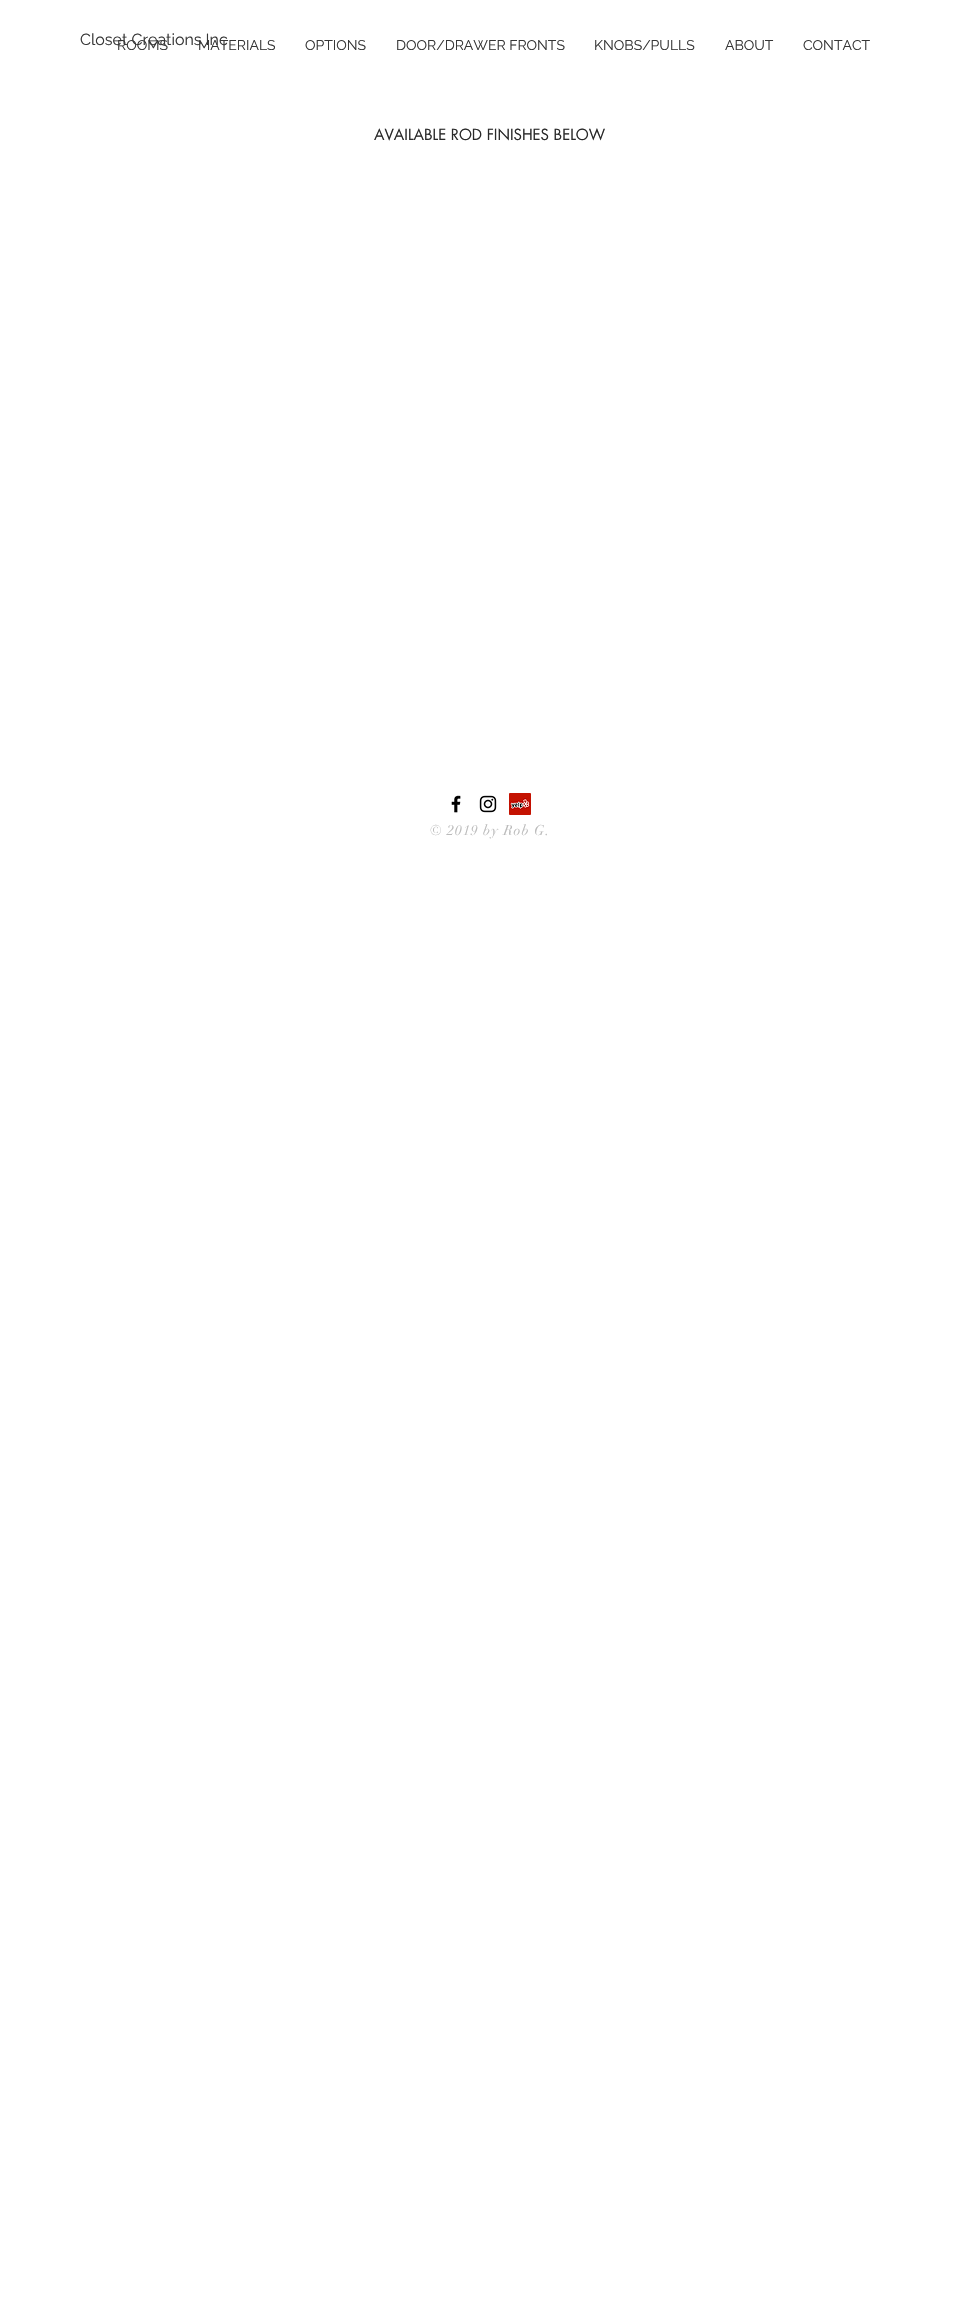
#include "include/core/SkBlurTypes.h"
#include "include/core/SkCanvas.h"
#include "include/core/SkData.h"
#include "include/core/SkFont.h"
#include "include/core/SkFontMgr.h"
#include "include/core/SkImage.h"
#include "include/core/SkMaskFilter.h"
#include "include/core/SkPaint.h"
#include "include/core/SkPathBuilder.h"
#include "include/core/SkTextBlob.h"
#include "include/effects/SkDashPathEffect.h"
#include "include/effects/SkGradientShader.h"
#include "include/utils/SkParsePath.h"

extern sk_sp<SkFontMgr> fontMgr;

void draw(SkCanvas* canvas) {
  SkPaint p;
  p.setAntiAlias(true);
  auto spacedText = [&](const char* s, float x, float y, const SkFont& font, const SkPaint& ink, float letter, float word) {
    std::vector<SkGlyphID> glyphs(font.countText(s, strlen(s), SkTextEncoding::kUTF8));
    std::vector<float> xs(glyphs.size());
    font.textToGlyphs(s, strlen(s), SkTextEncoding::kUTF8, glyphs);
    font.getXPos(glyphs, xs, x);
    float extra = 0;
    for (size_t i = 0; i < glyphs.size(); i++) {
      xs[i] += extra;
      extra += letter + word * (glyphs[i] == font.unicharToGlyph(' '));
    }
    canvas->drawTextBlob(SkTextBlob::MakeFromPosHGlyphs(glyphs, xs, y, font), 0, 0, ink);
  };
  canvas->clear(SK_ColorWHITE);
  canvas->drawImageRect(SkImages::DeferredFromEncodedData(SkData::MakeFromFileName("images/1.png")), SkRect::MakeLTRB(451, 795, 461, 813), SkSamplingOptions());
  canvas->drawImageRect(SkImages::DeferredFromEncodedData(SkData::MakeFromFileName("images/2.png")), SkRect::MakeLTRB(479, 795, 497, 813), SkSamplingOptions());
  canvas->drawImageRect(SkImages::DeferredFromEncodedData(SkData::MakeFromFileName("images/3.png")), SkRect::MakeLTRB(509, 793, 531, 815), SkSamplingOptions());
  SkFont font1(fontMgr->matchFamilyStyle("Raleway", SkFontStyle::Normal()), 14);
  font1.setSubpixel(true);
  p.setColor(SkColorSetRGB(54, 54, 54));
  canvas->drawString("ROOMS", 117, 50, font1, p);
  canvas->drawString("MATERIALS", 198, 50, font1, p);
  SkFont font2(fontMgr->matchFamilyStyle("Raleway", SkFontStyle::Normal()), 16);
  font2.setSubpixel(true);
  canvas->drawString("Closet Creations Inc", 80, 45, font2, p);
  canvas->drawString("OPTIONS", 305, 50, font1, p);
  canvas->drawString("DOOR/DRAWER FRONTS", 396, 50, font1, p);
  canvas->drawString("KNOBS/PULLS", 594, 50, font1, p);
  canvas->drawString("ABOUT", 725, 50, font1, p);
  canvas->drawString("CONTACT", 803, 50, font1, p);
  SkFont font3(fontMgr->matchFamilyStyle("futura", SkFontStyle::Normal()), 15);
  font3.setSubpixel(true);
  p.setColor(SkColorSetRGB(41, 41, 41));
  canvas->drawString("AVAILABLE ROD FINISHES BELOW", 374, 140, font3, p);
  SkFont font4(fontMgr->matchFamilyStyle("didot", SkFontStyle::Normal()), 14);
  font4.setSubpixel(true);
  p.setColor(SkColorSetRGB(186, 186, 186));
  spacedText("© 2019 by Rob G.", 430, 835, font4, p, 1.1f, 0);
}
